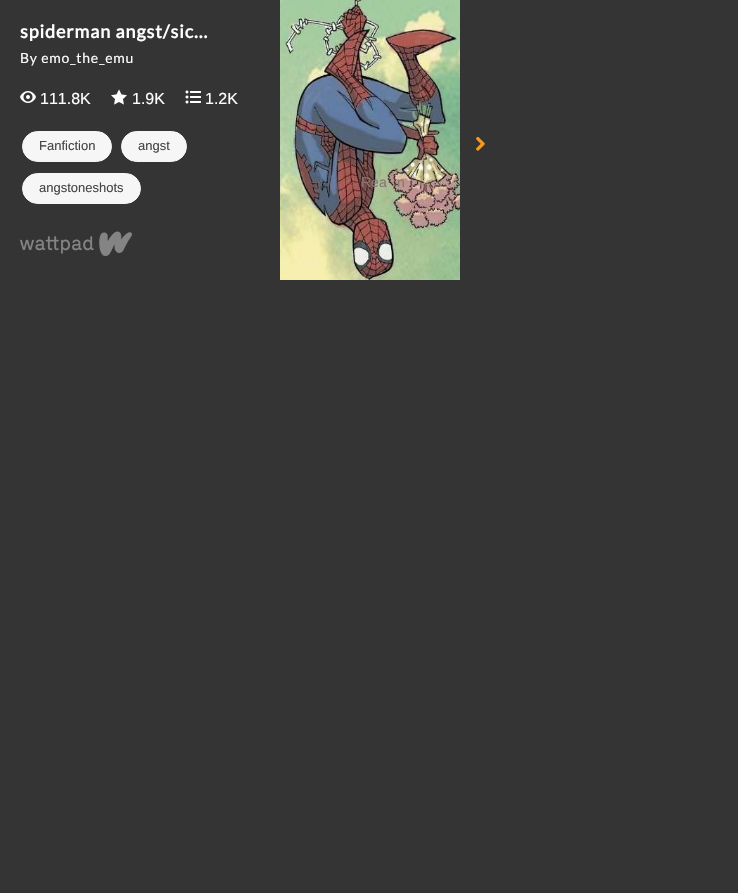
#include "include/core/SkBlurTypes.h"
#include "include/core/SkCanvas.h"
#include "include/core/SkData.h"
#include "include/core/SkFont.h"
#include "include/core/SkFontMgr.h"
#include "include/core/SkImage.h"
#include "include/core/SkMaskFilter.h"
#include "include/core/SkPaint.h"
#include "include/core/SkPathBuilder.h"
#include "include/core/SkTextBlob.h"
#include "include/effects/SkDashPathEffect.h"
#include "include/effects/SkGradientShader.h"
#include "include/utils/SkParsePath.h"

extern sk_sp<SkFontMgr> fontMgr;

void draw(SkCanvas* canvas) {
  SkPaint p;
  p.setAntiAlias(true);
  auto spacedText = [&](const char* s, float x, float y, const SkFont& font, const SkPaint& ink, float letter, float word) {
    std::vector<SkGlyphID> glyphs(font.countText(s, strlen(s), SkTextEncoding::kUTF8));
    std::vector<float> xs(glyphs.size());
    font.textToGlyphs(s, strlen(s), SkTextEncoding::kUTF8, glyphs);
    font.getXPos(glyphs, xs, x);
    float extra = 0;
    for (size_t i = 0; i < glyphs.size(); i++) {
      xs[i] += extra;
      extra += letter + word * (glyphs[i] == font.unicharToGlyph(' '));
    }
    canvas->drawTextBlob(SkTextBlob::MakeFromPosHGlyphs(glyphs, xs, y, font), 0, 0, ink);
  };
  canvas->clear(SkColorSetRGB(52, 52, 52));
  canvas->drawImageRect(SkImages::DeferredFromEncodedData(SkData::MakeFromFileName("images/1.png")), SkRect::MakeLTRB(20, 91, 36, 103), SkSamplingOptions());
  canvas->drawImageRect(SkImages::DeferredFromEncodedData(SkData::MakeFromFileName("images/2.png")), SkRect::MakeLTRB(111, 89, 127, 105), SkSamplingOptions());
  canvas->drawImageRect(SkImages::DeferredFromEncodedData(SkData::MakeFromFileName("images/3.png")), SkRect::MakeLTRB(185, 90, 201, 104), SkSamplingOptions());
  p.setColor(SkColorSetRGB(246, 246, 247));
  canvas->drawRoundRect(SkRect::MakeLTRB(22.5f, 131.5f, 111.5f, 161.5f), 15, 15, p);
  p.setStyle(SkPaint::kStroke_Style);
  p.setStrokeWidth(1);
  canvas->drawRoundRect(SkRect::MakeLTRB(22.5f, 131.5f, 111.5f, 161.5f), 15, 15, p);
  p.setStyle(SkPaint::kFill_Style);
  canvas->drawRoundRect(SkRect::MakeLTRB(121.5f, 131.5f, 186.5f, 161.5f), 15, 15, p);
  p.setStyle(SkPaint::kStroke_Style);
  canvas->drawRoundRect(SkRect::MakeLTRB(121.5f, 131.5f, 186.5f, 161.5f), 15, 15, p);
  p.setStyle(SkPaint::kFill_Style);
  canvas->drawRoundRect(SkRect::MakeLTRB(22.5f, 173.5f, 140.5f, 203.5f), 15, 15, p);
  p.setStyle(SkPaint::kStroke_Style);
  canvas->drawRoundRect(SkRect::MakeLTRB(22.5f, 173.5f, 140.5f, 203.5f), 15, 15, p);
  canvas->drawImageRect(SkImages::DeferredFromEncodedData(SkData::MakeFromFileName("images/4.png")), SkRect::MakeLTRB(20, 231, 132, 256), SkSamplingOptions());
  canvas->drawImageRect(SkImages::DeferredFromEncodedData(SkData::MakeFromFileName("images/5.png")), SkRect::MakeLTRB(476, 136, 485, 151), SkSamplingOptions());
  canvas->drawImageRect(SkImages::DeferredFromEncodedData(SkData::MakeFromFileName("images/6.png")), SkRect::MakeLTRB(280, 0, 460, 280), SkSamplingOptions());
  SkFont font1(fontMgr->matchFamilyStyle("Lato", SkFontStyle::Bold()), 18);
  font1.setSubpixel(true);
  p.setStyle(SkPaint::kFill_Style);
  p.setColor(SK_ColorWHITE);
  spacedText("spiderman angst/sic...", 20, 38, font1, p, 0.9f, 0);
  SkFont font2(fontMgr->matchFamilyStyle("Lato", SkFontStyle::Normal()), 14);
  font2.setSubpixel(true);
  spacedText("By emo_the_emu", 20, 63, font2, p, 0.75f, 0);
  SkFont font3(fontMgr->matchFamilyStyle("Liberation Sans", SkFontStyle::Normal()), 16);
  font3.setSubpixel(true);
  canvas->drawString("111.8K", 40, 104, font3, p);
  canvas->drawString("1.9K", 132, 104, font3, p);
  canvas->drawString("1.2K", 205, 104, font3, p);
  SkFont font4(fontMgr->matchFamilyStyle("Liberation Sans", SkFontStyle::Normal()), 13);
  font4.setSubpixel(true);
  p.setColor(SkColorSetRGB(68, 68, 68));
  canvas->drawString("Fanfiction", 39, 150, font4, p);
  canvas->drawString("angst", 138, 150, font4, p);
  canvas->drawString("angstoneshots", 39, 192, font4, p);
  SkFont font5(fontMgr->matchFamilyStyle("Liberation Sans", SkFontStyle::Normal()), 14);
  font5.setSubpixel(true);
  p.setColor(SkColorSetRGB(141, 115, 109));
  canvas->drawString("Rea", 361, 187, font5, p);
  canvas->drawString("n", 397, 187, font5, p);
}
